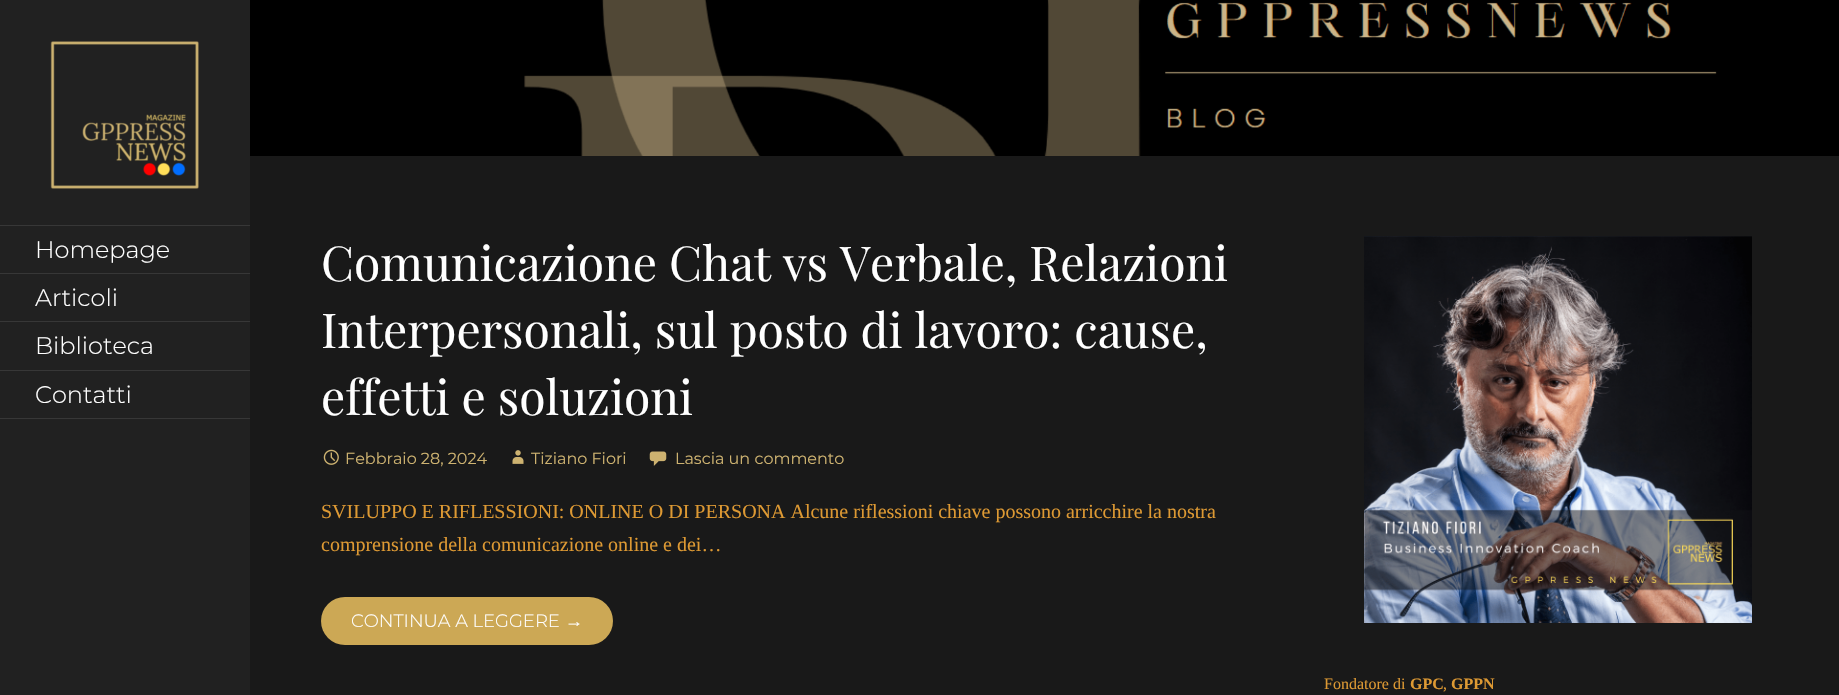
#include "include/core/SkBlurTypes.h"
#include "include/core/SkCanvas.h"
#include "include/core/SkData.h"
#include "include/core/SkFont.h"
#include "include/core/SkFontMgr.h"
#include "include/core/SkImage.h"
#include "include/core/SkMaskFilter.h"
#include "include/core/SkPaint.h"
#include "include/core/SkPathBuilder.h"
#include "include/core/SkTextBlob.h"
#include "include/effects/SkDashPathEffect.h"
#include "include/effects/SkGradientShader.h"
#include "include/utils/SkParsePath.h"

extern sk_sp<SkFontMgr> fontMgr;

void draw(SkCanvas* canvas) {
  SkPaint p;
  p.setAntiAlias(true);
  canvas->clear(SkColorSetRGB(25, 25, 25));
  canvas->drawImageRect(SkImages::DeferredFromEncodedData(SkData::MakeFromFileName("images/1.png")), SkRect::MakeLTRB(250, 0, 1839, 156), SkSamplingOptions());
  p.setColor(SkColorSetRGB(33, 33, 33));
  canvas->drawRect(SkRect::MakeLTRB(0, 0, 250, 695), p);
  canvas->drawImageRect(SkImages::DeferredFromEncodedData(SkData::MakeFromFileName("images/2.png")), SkRect::MakeLTRB(50, 41, 199, 189), SkSamplingOptions());
  p.setColor(SkColorSetRGB(55, 55, 55));
  canvas->drawRect(SkRect::MakeLTRB(0, 225, 250, 226), p);
  canvas->drawRect(SkRect::MakeLTRB(0, 273, 250, 274), p);
  canvas->drawRect(SkRect::MakeLTRB(0, 321, 250, 322), p);
  canvas->drawRect(SkRect::MakeLTRB(0, 370, 250, 371), p);
  canvas->drawRect(SkRect::MakeLTRB(0, 418, 250, 419), p);
  canvas->drawImageRect(SkImages::DeferredFromEncodedData(SkData::MakeFromFileName("images/3.png")), SkRect::MakeLTRB(323, 449, 339, 465), SkSamplingOptions());
  canvas->drawImageRect(SkImages::DeferredFromEncodedData(SkData::MakeFromFileName("images/4.png")), SkRect::MakeLTRB(512, 450, 524, 464), SkSamplingOptions());
  canvas->drawImageRect(SkImages::DeferredFromEncodedData(SkData::MakeFromFileName("images/5.png")), SkRect::MakeLTRB(649, 451, 667, 466), SkSamplingOptions());
  p.setColor(SkColorSetRGB(204, 168, 85));
  canvas->drawRoundRect(SkRect::MakeLTRB(321, 597, 613, 645), 24, 24, p);
  canvas->drawImageRect(SkImages::DeferredFromEncodedData(SkData::MakeFromFileName("images/6.png")), SkRect::MakeLTRB(1364, 236, 1752, 623), SkSamplingOptions());
  SkFont font1(fontMgr->matchFamilyStyle("Montserrat", SkFontStyle(300, SkFontStyle::kNormal_Width, SkFontStyle::kUpright_Slant)), 24);
  font1.setSubpixel(true);
  p.setColor(SK_ColorWHITE);
  canvas->drawString("Homepage", 35, 258, font1, p);
  canvas->drawString("Articoli", 35, 306, font1, p);
  canvas->drawString("Biblioteca", 35, 354, font1, p);
  canvas->drawString("Contatti", 35, 403, font1, p);
  SkFont font2(fontMgr->matchFamilyStyle("Playfair Display", SkFontStyle::Normal()), 48);
  font2.setSubpixel(true);
  canvas->drawString("Comunicazione Chat vs Verbale, Relazioni", 321, 281, font2, p);
  canvas->drawString("Interpersonali, sul posto di lavoro: cause,", 321, 348, font2, p);
  canvas->drawString("effetti e soluzioni", 321, 415, font2, p);
  SkFont font3(fontMgr->matchFamilyStyle("Montserrat", SkFontStyle::Normal()), 16);
  font3.setSubpixel(true);
  p.setColor(SkColorSetRGB(205, 178, 112));
  canvas->drawString("Febbraio 28, 2024", 345, 464, font3, p);
  canvas->drawString("Tiziano Fiori", 531, 464, font3, p);
  canvas->drawString("Lascia un commento", 675, 464, font3, p);
  SkFont font4(fontMgr->matchFamilyStyle("Liberation Serif", SkFontStyle::Normal()), 20);
  font4.setSubpixel(true);
  p.setColor(SkColorSetRGB(221, 153, 51));
  canvas->drawString("SVILUPPO E RIFLESSIONI: ONLINE O DI PERSONA Alcune riflessioni chiave possono arricchire la nostra", 321, 518, font4, p);
  canvas->drawString("comprensione della comunicazione online e dei…", 321, 551, font4, p);
  SkFont font5(fontMgr->matchFamilyStyle("Montserrat", SkFontStyle(300, SkFontStyle::kNormal_Width, SkFontStyle::kUpright_Slant)), 18);
  font5.setSubpixel(true);
  p.setColor(SK_ColorWHITE);
  canvas->drawString("CONTINUA A LEGGERE", 351, 627, font5, p);
  SkFont font6(fontMgr->matchFamilyStyle("Liberation Sans", SkFontStyle::Normal()), 18);
  font6.setSubpixel(true);
  canvas->drawString("→", 565, 627, font6, p);
  SkFont font7(fontMgr->matchFamilyStyle("Liberation Serif", SkFontStyle::Normal()), 16);
  font7.setSubpixel(true);
  p.setColor(SkColorSetRGB(221, 153, 51));
  canvas->drawString("Fondatore di", 1324, 689, font7, p);
  SkFont font8(fontMgr->matchFamilyStyle("Liberation Serif", SkFontStyle::Bold()), 16);
  font8.setSubpixel(true);
  canvas->drawString("GPC", 1410, 689, font8, p);
  canvas->drawString(",", 1443, 689, font7, p);
  canvas->drawString("GPPN", 1451, 689, font8, p);
}
